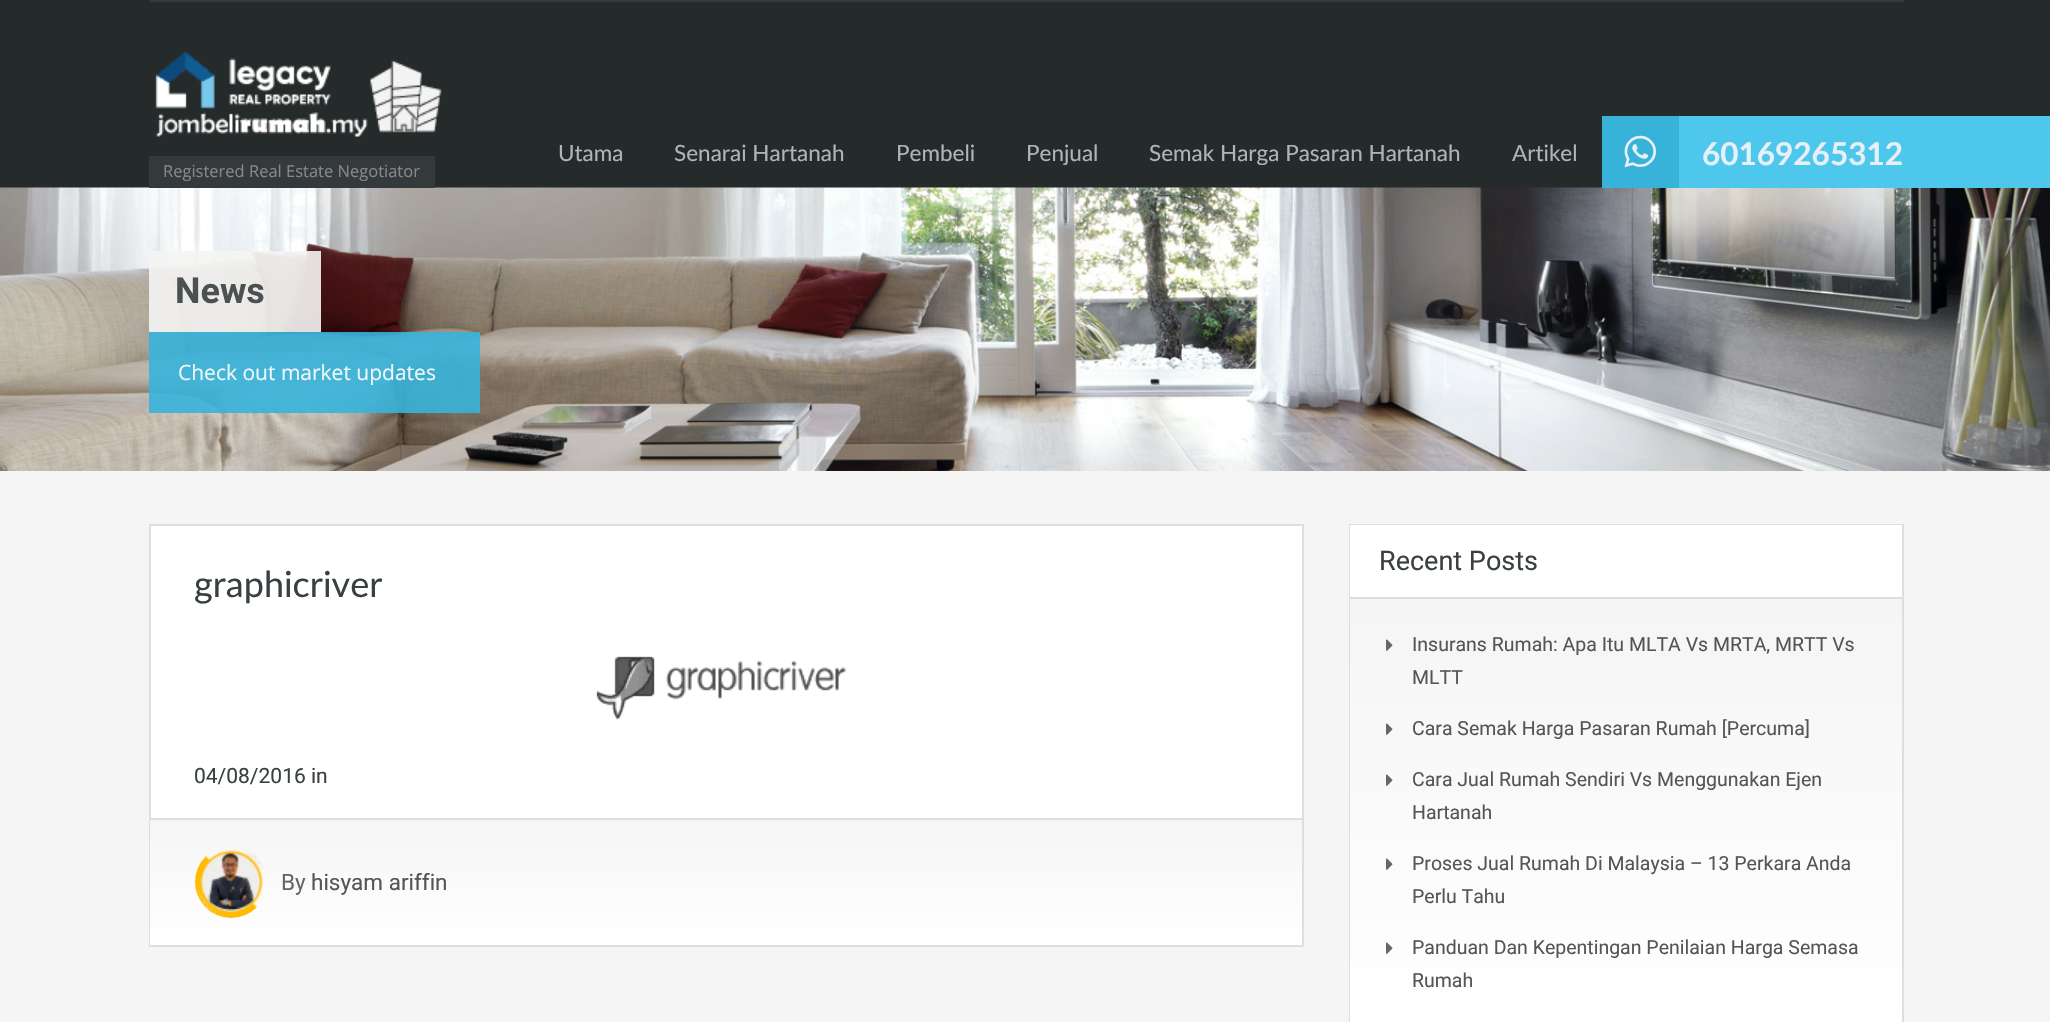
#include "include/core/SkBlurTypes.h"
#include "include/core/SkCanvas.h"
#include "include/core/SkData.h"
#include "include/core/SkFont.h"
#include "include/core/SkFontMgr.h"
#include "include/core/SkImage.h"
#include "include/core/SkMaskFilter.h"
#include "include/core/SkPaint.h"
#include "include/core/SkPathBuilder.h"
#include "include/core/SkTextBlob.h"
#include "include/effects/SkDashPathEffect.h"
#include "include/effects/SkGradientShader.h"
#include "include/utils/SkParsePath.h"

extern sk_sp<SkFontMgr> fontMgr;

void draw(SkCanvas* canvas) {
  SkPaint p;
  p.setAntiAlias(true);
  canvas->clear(SkColorSetRGB(245, 245, 245));
  p.setColor(SkColorSetRGB(37, 42, 43));
  canvas->drawRect(SkRect::MakeLTRB(0, 0, 2050, 188), p);
  p.setColor(SkColorSetRGB(52, 58, 59));
  canvas->drawRect(SkRect::MakeLTRB(149, 0, 1904, 2), p);
  canvas->drawImageRect(SkImages::DeferredFromEncodedData(SkData::MakeFromFileName("images/3.png")), SkRect::MakeLTRB(0, 187, 2050, 471), SkSamplingOptions());
  p.setColor(SkColorSetRGB(77, 199, 236));
  canvas->drawRect(SkRect::MakeLTRB(1679, 116, 2050, 188), p);
  p.setColor(SkColorSetRGB(55, 179, 217));
  canvas->drawRect(SkRect::MakeLTRB(1602, 116, 1679, 188), p);
  canvas->drawImageRect(SkImages::DeferredFromEncodedData(SkData::MakeFromFileName("images/1.png")), SkRect::MakeLTRB(1624, 135, 1656, 168), SkSamplingOptions());
  canvas->drawImageRect(SkImages::DeferredFromEncodedData(SkData::MakeFromFileName("images/2.png")), SkRect::MakeLTRB(155, 51, 442, 137), SkSamplingOptions());
  p.setColor(SkColorSetRGB(52, 58, 59));
  canvas->drawRect(SkRect::MakeLTRB(149, 156, 435, 188), p);
  p.setColor(SkColorSetARGB(230, 245, 244, 243));
  canvas->drawRect(SkRect::MakeLTRB(149, 251, 321, 332), p);
  p.setColor(SkColorSetARGB(230, 55, 179, 217));
  canvas->drawRect(SkRect::MakeLTRB(149, 332, 480, 413), p);
  p.setColor(SK_ColorWHITE);
  canvas->drawRect(SkRect::MakeLTRB(151, 526, 1302, 818), p);
  p.setStyle(SkPaint::kStroke_Style);
  p.setStrokeWidth(2);
  p.setColor(SkColorSetRGB(222, 222, 222));
  canvas->drawRect(SkRect::MakeLTRB(150, 525, 1303, 946), p);
  canvas->drawImageRect(SkImages::DeferredFromEncodedData(SkData::MakeFromFileName("images/4.png")), SkRect::MakeLTRB(596, 656, 847, 720), SkSamplingOptions());
  p.setStyle(SkPaint::kFill_Style);
  {
    const SkColor colors[] = {SK_ColorWHITE, SkColorSetRGB(245, 245, 245)};
    const float stops[] = {0, 1};
    const SkPoint ends[] = {{726, 945}, {726, 819}};
    p.setShader(SkGradientShader::MakeLinear(ends, colors, stops, 2, SkTileMode::kClamp));
    p.setAlpha(255);
  }
  canvas->drawRect(SkRect::MakeLTRB(150, 820, 1302, 945), p);
  p.setShader(nullptr);
  p.setColor(SkColorSetRGB(222, 222, 222));
  canvas->drawRect(SkRect::MakeLTRB(150, 818, 1302, 820), p);
  canvas->drawImageRect(SkImages::DeferredFromEncodedData(SkData::MakeFromFileName("images/5.png")), SkRect::MakeLTRB(195, 848, 265, 918), SkSamplingOptions());
  p.setStyle(SkPaint::kStroke_Style);
  canvas->drawRect(SkRect::MakeLTRB(1350, 525, 1903, 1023), p);
  p.setStyle(SkPaint::kFill_Style);
  p.setColor(SK_ColorWHITE);
  canvas->drawRect(SkRect::MakeLTRB(1350, 525, 1902, 597), p);
  p.setColor(SkColorSetRGB(222, 222, 222));
  canvas->drawRect(SkRect::MakeLTRB(1350, 597, 1902, 599), p);
  {
    const SkColor colors[] = {SK_ColorWHITE, SkColorSetRGB(245, 245, 245)};
    const float stops[] = {0, 1};
    const SkPoint ends[] = {{1626, 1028}, {1626, 599}};
    p.setShader(SkGradientShader::MakeLinear(ends, colors, stops, 2, SkTileMode::kClamp));
    p.setAlpha(255);
  }
  canvas->drawRect(SkRect::MakeLTRB(1350, 599, 1902, 1022), p);
  canvas->drawImageRect(SkImages::DeferredFromEncodedData(SkData::MakeFromFileName("images/6.png")), SkRect::MakeLTRB(1386, 639, 1393, 651), SkSamplingOptions());
  canvas->drawImageRect(SkImages::DeferredFromEncodedData(SkData::MakeFromFileName("images/7.png")), SkRect::MakeLTRB(1386, 723, 1393, 735), SkSamplingOptions());
  canvas->drawImageRect(SkImages::DeferredFromEncodedData(SkData::MakeFromFileName("images/8.png")), SkRect::MakeLTRB(1386, 774, 1393, 786), SkSamplingOptions());
  canvas->drawImageRect(SkImages::DeferredFromEncodedData(SkData::MakeFromFileName("images/9.png")), SkRect::MakeLTRB(1386, 858, 1393, 870), SkSamplingOptions());
  canvas->drawImageRect(SkImages::DeferredFromEncodedData(SkData::MakeFromFileName("images/10.png")), SkRect::MakeLTRB(1386, 942, 1393, 954), SkSamplingOptions());
  SkFont font1(fontMgr->matchFamilyStyle("Lato", SkFontStyle::Normal()), 22.5f);
  font1.setSubpixel(true);
  p.setShader(nullptr);
  p.setColor(SkColorSetRGB(175, 180, 181));
  canvas->drawString("Utama", 558, 161, font1, p);
  canvas->drawString("Senarai Hartanah", 674, 161, font1, p);
  canvas->drawString("Pembeli", 896, 161, font1, p);
  canvas->drawString("Penjual", 1026, 161, font1, p);
  canvas->drawString("Semak Harga Pasaran Hartanah", 1149, 161, font1, p);
  canvas->drawString("Artikel", 1512, 161, font1, p);
  SkFont font2(fontMgr->matchFamilyStyle("Lato", SkFontStyle::Bold()), 31.5f);
  font2.setSubpixel(true);
  p.setColor(SkColorSetRGB(231, 239, 247));
  canvas->drawString("60169265312", 1702, 165, font2, p);
  SkFont font3(fontMgr->matchFamilyStyle("Open Sans", SkFontStyle::Normal()), 16.5f);
  font3.setSubpixel(true);
  p.setColor(SkColorSetRGB(136, 136, 136));
  canvas->drawString("Registered Real Estate Negotiator", 163, 177, font3, p);
  SkFont font4(fontMgr->matchFamilyStyle("Roboto", SkFontStyle::Bold()), 36);
  font4.setSubpixel(true);
  p.setColor(SkColorSetRGB(75, 81, 82));
  canvas->drawString("News", 175, 303, font4, p);
  SkFont font5(fontMgr->matchFamilyStyle("Open Sans", SkFontStyle::Normal()), 21);
  font5.setSubpixel(true);
  p.setColor(SkColorSetRGB(236, 247, 251));
  canvas->drawString("Check out market updates", 178, 380, font5, p);
  SkFont font6(fontMgr->matchFamilyStyle("Lato", SkFontStyle::Normal()), 36);
  font6.setSubpixel(true);
  p.setColor(SkColorSetRGB(57, 64, 65));
  canvas->drawString("graphicriver", 194, 597, font6, p);
  SkFont font7(fontMgr->matchFamilyStyle("Roboto", SkFontStyle::Normal()), 21);
  font7.setSubpixel(true);
  canvas->drawString("04/08/2016 in", 194, 783, font7, p);
  SkFont font8(fontMgr->matchFamilyStyle("Roboto", SkFontStyle::Normal()), 22.5f);
  font8.setSubpixel(true);
  p.setColor(SkColorSetRGB(102, 102, 102));
  canvas->drawString("By", 281, 890, font8, p);
  p.setColor(SkColorSetRGB(85, 85, 85));
  canvas->drawString("hisyam ariffin", 311, 890, font8, p);
  SkFont font9(fontMgr->matchFamilyStyle("Roboto", SkFontStyle::Normal()), 27);
  font9.setSubpixel(true);
  p.setColor(SkColorSetRGB(57, 64, 65));
  canvas->drawString("Recent Posts", 1379, 570, font9, p);
  SkFont font10(fontMgr->matchFamilyStyle("Roboto", SkFontStyle::Normal()), 19.5f);
  font10.setSubpixel(true);
  p.setColor(SkColorSetRGB(85, 85, 85));
  canvas->drawString("Insurans Rumah: Apa Itu MLTA Vs MRTA, MRTT Vs", 1412, 651, font10, p);
  canvas->drawString("MLTT", 1412, 684, font10, p);
  canvas->drawString("Cara Semak Harga Pasaran Rumah [Percuma]", 1412, 735, font10, p);
  canvas->drawString("Cara Jual Rumah Sendiri Vs Menggunakan Ejen", 1412, 786, font10, p);
  canvas->drawString("Hartanah", 1412, 819, font10, p);
  canvas->drawString("Proses Jual Rumah Di Malaysia – 13 Perkara Anda", 1412, 870, font10, p);
  canvas->drawString("Perlu Tahu", 1412, 903, font10, p);
  canvas->drawString("Panduan Dan Kepentingan Penilaian Harga Semasa", 1412, 954, font10, p);
  canvas->drawString("Rumah", 1412, 987, font10, p);
}
